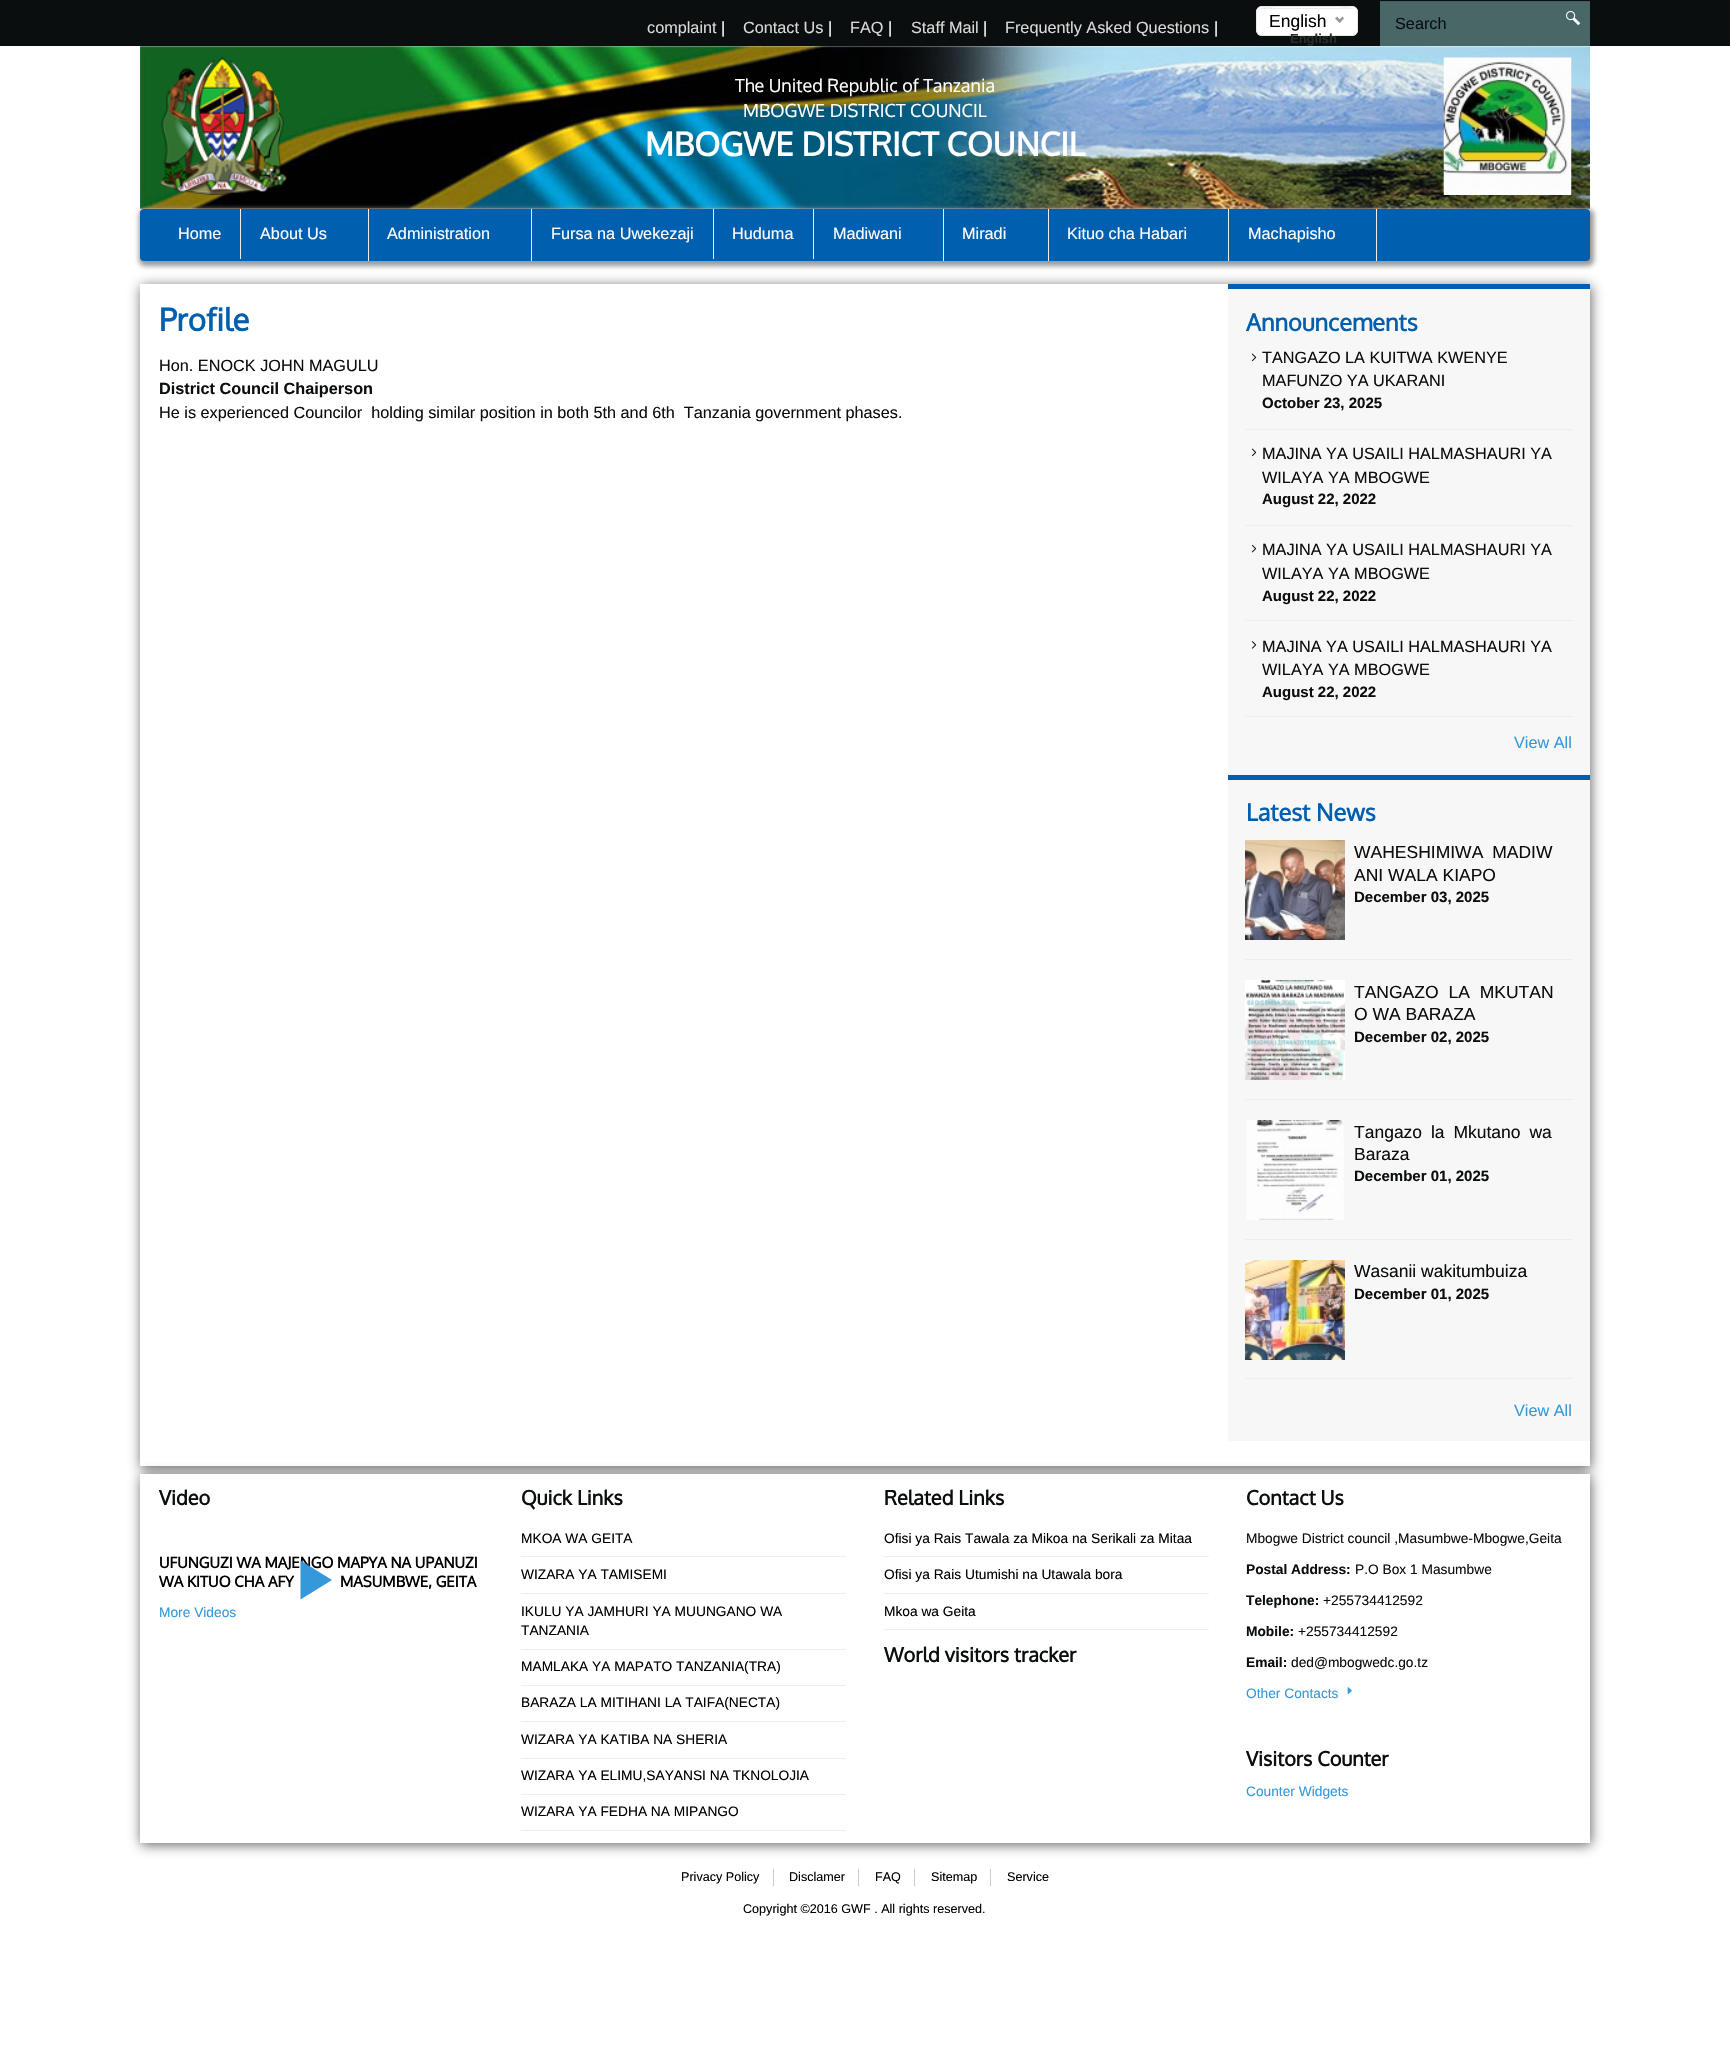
#include "include/core/SkBlurTypes.h"
#include "include/core/SkCanvas.h"
#include "include/core/SkData.h"
#include "include/core/SkFont.h"
#include "include/core/SkFontMgr.h"
#include "include/core/SkImage.h"
#include "include/core/SkMaskFilter.h"
#include "include/core/SkPaint.h"
#include "include/core/SkPathBuilder.h"
#include "include/core/SkTextBlob.h"
#include "include/effects/SkDashPathEffect.h"
#include "include/effects/SkGradientShader.h"
#include "include/utils/SkParsePath.h"

extern sk_sp<SkFontMgr> fontMgr;

void draw(SkCanvas* canvas) {
  SkPaint p;
  p.setAntiAlias(true);
  auto spacedText = [&](const char* s, float x, float y, const SkFont& font, const SkPaint& ink, float letter, float word) {
    std::vector<SkGlyphID> glyphs(font.countText(s, strlen(s), SkTextEncoding::kUTF8));
    std::vector<float> xs(glyphs.size());
    font.textToGlyphs(s, strlen(s), SkTextEncoding::kUTF8, glyphs);
    font.getXPos(glyphs, xs, x);
    float extra = 0;
    for (size_t i = 0; i < glyphs.size(); i++) {
      xs[i] += extra;
      extra += letter + word * (glyphs[i] == font.unicharToGlyph(' '));
    }
    canvas->drawTextBlob(SkTextBlob::MakeFromPosHGlyphs(glyphs, xs, y, font), 0, 0, ink);
  };
  canvas->clear(SK_ColorWHITE);
  p.setColor(SkColorSetRGB(10, 14, 14));
  canvas->drawRect(SkRect::MakeLTRB(0, 0, 1730, 46), p);
  p.setColor(SK_ColorWHITE);
  canvas->drawRoundRect(SkRect::MakeLTRB(1256, 6, 1358, 36), 6, 6, p);
  p.setColor(SkColorSetRGB(236, 236, 236));
  canvas->drawPath(SkPathBuilder().moveTo(1262, 9).lineTo(1351, 9).cubicTo(1354, 9, 1356, 11, 1356, 14).cubicTo(1356, 4, 1342, 8, 1336, 8).lineTo(1278, 8).cubicTo(1272, 8, 1258, 4, 1258, 14).cubicTo(1258, 11, 1260, 9, 1262, 9).close().detach(), p);
  p.setStyle(SkPaint::kStroke_Style);
  p.setStrokeWidth(1);
  p.setColor(SkColorSetRGB(232, 232, 232));
  canvas->drawRoundRect(SkRect::MakeLTRB(1256.5f, 6.5f, 1357.5f, 35.5f), 5.5f, 5.5f, p);
  p.setStyle(SkPaint::kFill_Style);
  p.setColor(SkColorSetRGB(153, 153, 153));
  canvas->drawPath(SkPathBuilder().moveTo(1342.5f, 16.5f).lineTo(1344, 18.5f).lineTo(1339.5f, 23).lineTo(1338, 21).close().detach(), p);
  canvas->drawPath(SkPathBuilder().moveTo(1337, 16.5f).lineTo(1341.5f, 21).lineTo(1339.5f, 23).lineTo(1335, 18.5f).close().detach(), p);
  p.setColor(SkColorSetRGB(74, 103, 103));
  canvas->drawRect(SkRect::MakeLTRB(1380, 2, 1590, 46), p);
  p.setColor(SkColorSetRGB(68, 95, 95));
  canvas->drawRect(SkRect::MakeLTRB(1380, 1, 1590, 2), p);
  canvas->drawImageRect(SkImages::DeferredFromEncodedData(SkData::MakeFromFileName("images/1.png")), SkRect::MakeLTRB(1566, 11, 1581, 26), SkSamplingOptions());
  canvas->drawImageRect(SkImages::DeferredFromEncodedData(SkData::MakeFromFileName("images/2.png")), SkRect::MakeLTRB(140, 46, 1590, 209), SkSamplingOptions());
  canvas->drawImageRect(SkImages::DeferredFromEncodedData(SkData::MakeFromFileName("images/3.png")), SkRect::MakeLTRB(160, 57, 287, 195), SkSamplingOptions());
  canvas->drawImageRect(SkImages::DeferredFromEncodedData(SkData::MakeFromFileName("images/4.png")), SkRect::MakeLTRB(1443, 57, 1572, 195), SkSamplingOptions());
  p.setColor(SkColorSetRGB(153, 153, 153));
  p.setMaskFilter(SkMaskFilter::MakeBlur(kNormal_SkBlurStyle, 2.5f));
  canvas->drawRoundRect(SkRect::MakeLTRB(139, 209, 1594, 266), 6, 6, p);
  p.setMaskFilter(nullptr);
  p.setColor(SkColorSetRGB(0, 95, 175));
  canvas->drawRoundRect(SkRect::MakeLTRB(140, 209, 1590, 261), 4, 4, p);
  p.setColor(SkColorSetRGB(238, 238, 238));
  canvas->drawRect(SkRect::MakeLTRB(240, 209, 241, 259), p);
  canvas->drawRect(SkRect::MakeLTRB(368, 209, 369, 261), p);
  canvas->drawRect(SkRect::MakeLTRB(531, 209, 532, 261), p);
  canvas->drawRect(SkRect::MakeLTRB(713, 209, 714, 259), p);
  canvas->drawRect(SkRect::MakeLTRB(813, 209, 814, 259), p);
  canvas->drawRect(SkRect::MakeLTRB(943, 209, 944, 261), p);
  canvas->drawRect(SkRect::MakeLTRB(1048, 209, 1049, 261), p);
  canvas->drawRect(SkRect::MakeLTRB(1228, 209, 1229, 261), p);
  canvas->drawRect(SkRect::MakeLTRB(1376, 209, 1377, 261), p);
  canvas->save();
  canvas->clipPath(SkPathBuilder(SkPathFillType::kEvenOdd).moveTo(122, 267).lineTo(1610, 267).lineTo(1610, 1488).lineTo(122, 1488).close().moveTo(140, 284).lineTo(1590, 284).lineTo(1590, 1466).lineTo(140, 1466).close().detach(), true);
  p.setColor(SkColorSetARGB(191, 50, 50, 50));
  p.setMaskFilter(SkMaskFilter::MakeBlur(kNormal_SkBlurStyle, 6));
  canvas->drawRect(SkRect::MakeLTRB(141, 286, 1591, 1469), p);
  p.setMaskFilter(nullptr);
  canvas->restore();
  p.setColor(SkColorSetRGB(247, 247, 247));
  canvas->drawRect(SkRect::MakeLTRB(1228, 289, 1590, 1441), p);
  p.setColor(SkColorSetRGB(0, 95, 175));
  canvas->drawRect(SkRect::MakeLTRB(1228, 284, 1590, 289), p);
  p.setColor(SkColorSetRGB(238, 238, 238));
  canvas->drawRect(SkRect::MakeLTRB(1245, 429, 1573, 430), p);
  canvas->drawImageRect(SkImages::DeferredFromEncodedData(SkData::MakeFromFileName("images/5.png")), SkRect::MakeLTRB(1251, 353, 1257, 362), SkSamplingOptions());
  canvas->drawRect(SkRect::MakeLTRB(1245, 525, 1573, 526), p);
  canvas->drawImageRect(SkImages::DeferredFromEncodedData(SkData::MakeFromFileName("images/5.png")), SkRect::MakeLTRB(1251, 448, 1257, 457), SkSamplingOptions());
  canvas->drawRect(SkRect::MakeLTRB(1245, 620, 1573, 621), p);
  canvas->drawImageRect(SkImages::DeferredFromEncodedData(SkData::MakeFromFileName("images/6.png")), SkRect::MakeLTRB(1251, 544, 1257, 553), SkSamplingOptions());
  canvas->drawRect(SkRect::MakeLTRB(1245, 716, 1573, 717), p);
  canvas->drawImageRect(SkImages::DeferredFromEncodedData(SkData::MakeFromFileName("images/7.png")), SkRect::MakeLTRB(1251, 641, 1257, 649), SkSamplingOptions());
  p.setColor(SkColorSetRGB(0, 95, 175));
  canvas->drawRect(SkRect::MakeLTRB(1228, 775, 1590, 780), p);
  p.setColor(SkColorSetRGB(238, 238, 238));
  canvas->drawRect(SkRect::MakeLTRB(1245, 959, 1573, 960), p);
  canvas->drawImageRect(SkImages::DeferredFromEncodedData(SkData::MakeFromFileName("images/8.png")), SkRect::MakeLTRB(1245, 840, 1345, 940), SkSamplingOptions());
  canvas->drawRect(SkRect::MakeLTRB(1245, 1099, 1573, 1100), p);
  canvas->drawImageRect(SkImages::DeferredFromEncodedData(SkData::MakeFromFileName("images/9.png")), SkRect::MakeLTRB(1245, 980, 1345, 1080), SkSamplingOptions());
  canvas->drawRect(SkRect::MakeLTRB(1245, 1239, 1573, 1240), p);
  canvas->drawImageRect(SkImages::DeferredFromEncodedData(SkData::MakeFromFileName("images/10.png")), SkRect::MakeLTRB(1246, 1120, 1344, 1220), SkSamplingOptions());
  canvas->drawRect(SkRect::MakeLTRB(1245, 1378, 1573, 1379), p);
  canvas->drawImageRect(SkImages::DeferredFromEncodedData(SkData::MakeFromFileName("images/11.png")), SkRect::MakeLTRB(1245, 1260, 1345, 1360), SkSamplingOptions());
  p.setColor(SkColorSetARGB(191, 50, 50, 50));
  p.setMaskFilter(SkMaskFilter::MakeBlur(kNormal_SkBlurStyle, 6));
  canvas->drawRect(SkRect::MakeLTRB(141, 1476, 1591, 1845), p);
  p.setMaskFilter(nullptr);
  p.setColor(SK_ColorWHITE);
  canvas->drawRect(SkRect::MakeLTRB(140, 1474, 1590, 1843), p);
  p.setColor(SkColorSetRGB(238, 238, 238));
  canvas->drawRect(SkRect::MakeLTRB(521, 1556, 846, 1557), p);
  canvas->drawRect(SkRect::MakeLTRB(521, 1593, 846, 1594), p);
  canvas->drawRect(SkRect::MakeLTRB(521, 1649, 846, 1650), p);
  canvas->drawRect(SkRect::MakeLTRB(521, 1685, 846, 1686), p);
  canvas->drawRect(SkRect::MakeLTRB(521, 1721, 846, 1722), p);
  canvas->drawRect(SkRect::MakeLTRB(521, 1758, 846, 1759), p);
  canvas->drawRect(SkRect::MakeLTRB(521, 1794, 846, 1795), p);
  canvas->drawRect(SkRect::MakeLTRB(521, 1830, 846, 1831), p);
  canvas->drawRect(SkRect::MakeLTRB(884, 1556, 1209, 1557), p);
  canvas->drawRect(SkRect::MakeLTRB(884, 1593, 1209, 1594), p);
  canvas->drawRect(SkRect::MakeLTRB(884, 1629, 1209, 1630), p);
  canvas->drawImageRect(SkImages::DeferredFromEncodedData(SkData::MakeFromFileName("images/12.png")), SkRect::MakeLTRB(1347, 1687, 1352, 1694), SkSamplingOptions());
  p.setColor(SkColorSetRGB(204, 204, 204));
  canvas->drawRect(SkRect::MakeLTRB(773, 1869, 774, 1886), p);
  canvas->drawRect(SkRect::MakeLTRB(858, 1869, 859, 1886), p);
  canvas->drawRect(SkRect::MakeLTRB(914, 1869, 915, 1886), p);
  canvas->drawRect(SkRect::MakeLTRB(990, 1869, 991, 1886), p);
  SkFont font1(fontMgr->matchFamilyStyle("Liberation Sans", SkFontStyle::Normal()), 16.25f);
  font1.setSubpixel(true);
  p.setColor(SkColorSetRGB(217, 217, 217));
  canvas->drawString("complaint", 647, 33, font1, p);
  p.setColor(SK_ColorWHITE);
  canvas->drawString("|", 721, 33, font1, p);
  p.setColor(SkColorSetRGB(217, 217, 217));
  canvas->drawString("Contact Us", 743, 33, font1, p);
  p.setColor(SK_ColorWHITE);
  canvas->drawString("|", 828, 33, font1, p);
  p.setColor(SkColorSetRGB(217, 217, 217));
  canvas->drawString("FAQ", 850, 33, font1, p);
  p.setColor(SK_ColorWHITE);
  canvas->drawString("|", 888, 33, font1, p);
  p.setColor(SkColorSetRGB(217, 217, 217));
  canvas->drawString("Staff Mail", 911, 33, font1, p);
  p.setColor(SK_ColorWHITE);
  canvas->drawString("|", 983, 33, font1, p);
  p.setColor(SkColorSetRGB(217, 217, 217));
  canvas->drawString("Frequently Asked Questions", 1005, 33, font1, p);
  p.setColor(SK_ColorWHITE);
  canvas->drawString("|", 1214, 33, font1, p);
  SkFont font2(fontMgr->matchFamilyStyle("Liberation Sans", SkFontStyle::Normal()), 17.5f);
  font2.setSubpixel(true);
  p.setColor(SK_ColorBLACK);
  canvas->drawString("English", 1269, 27, font2, p);
  SkFont font3(fontMgr->matchFamilyStyle("Liberation Sans", SkFontStyle::Bold()), 13);
  font3.setSubpixel(true);
  p.setColor(SkColorSetRGB(41, 44, 44));
  canvas->drawString("English", 1290, 43, font3, p);
  p.setColor(SkColorSetRGB(10, 14, 14));
  canvas->drawString("Search", 1395, 29, font1, p);
  SkFont font4(fontMgr->matchFamilyStyle("Oxygen", SkFontStyle::Normal()), 18);
  font4.setSubpixel(true);
  p.setColor(SK_ColorWHITE);
  canvas->drawString("The United Republic of Tanzania", 735, 92, font4, p);
  canvas->drawString("MBOGWE DISTRICT COUNCIL", 743, 117, font4, p);
  SkFont font5(fontMgr->matchFamilyStyle("Oxygen", SkFontStyle::Bold()), 32.5f);
  font5.setSubpixel(true);
  canvas->drawString("MBOGWE DISTRICT COUNCIL", 645, 156, font5, p);
  canvas->drawString("Home", 178, 239, font1, p);
  canvas->drawString("About Us", 260, 239, font1, p);
  canvas->drawString("Administration", 387, 239, font1, p);
  canvas->drawString("Fursa na Uwekezaji", 551, 239, font1, p);
  canvas->drawString("Huduma", 732, 239, font1, p);
  canvas->drawString("Madiwani", 833, 239, font1, p);
  canvas->drawString("Miradi", 962, 239, font1, p);
  canvas->drawString("Kituo cha Habari", 1067, 239, font1, p);
  canvas->drawString("Machapisho", 1248, 239, font1, p);
  SkFont font6(fontMgr->matchFamilyStyle("Oxygen", SkFontStyle::Bold()), 31);
  font6.setSubpixel(true);
  p.setColor(SkColorSetRGB(0, 95, 175));
  canvas->drawString("Profile", 159, 331, font6, p);
  p.setColor(SkColorSetRGB(10, 14, 14));
  canvas->drawString("Hon. ENOCK JOHN MAGULU", 159, 371, font1, p);
  SkFont font7(fontMgr->matchFamilyStyle("Liberation Sans", SkFontStyle::Bold()), 16.25f);
  font7.setSubpixel(true);
  canvas->drawString("District Council Chaiperson", 159, 394, font7, p);
  canvas->drawString("He is experienced Councilor  holding similar position in both 5th and 6th  Tanzania government phases.", 159, 418, font1, p);
  SkFont font8(fontMgr->matchFamilyStyle("Oxygen", SkFontStyle::Bold()), 23.5f);
  font8.setSubpixel(true);
  p.setColor(SkColorSetRGB(0, 95, 175));
  canvas->drawString("Announcements", 1246, 331, font8, p);
  p.setColor(SkColorSetRGB(10, 14, 14));
  canvas->drawString("TANGAZO LA KUITWA KWENYE", 1262, 363, font1, p);
  canvas->drawString("MAFUNZO YA UKARANI", 1262, 386, font1, p);
  SkFont font9(fontMgr->matchFamilyStyle("Liberation Sans", SkFontStyle::Bold()), 15);
  font9.setSubpixel(true);
  canvas->drawString("October 23, 2025", 1262, 408, font9, p);
  canvas->drawString("MAJINA YA USAILI HALMASHAURI YA", 1262, 459, font1, p);
  canvas->drawString("WILAYA YA MBOGWE", 1262, 483, font1, p);
  canvas->drawString("August 22, 2022", 1262, 504, font9, p);
  canvas->drawString("MAJINA YA USAILI HALMASHAURI YA", 1262, 555, font1, p);
  canvas->drawString("WILAYA YA MBOGWE", 1262, 579, font1, p);
  canvas->drawString("August 22, 2022", 1262, 601, font9, p);
  canvas->drawString("MAJINA YA USAILI HALMASHAURI YA", 1262, 652, font1, p);
  canvas->drawString("WILAYA YA MBOGWE", 1262, 675, font1, p);
  canvas->drawString("August 22, 2022", 1262, 697, font9, p);
  p.setColor(SkColorSetRGB(52, 152, 219));
  canvas->drawString("View All", 1514, 748, font1, p);
  p.setColor(SkColorSetRGB(0, 95, 175));
  canvas->drawString("Latest News", 1246, 821, font8, p);
  p.setColor(SkColorSetRGB(10, 14, 14));
  spacedText("WAHESHIMIWA MADIW", 1354, 858, font2, p, 0, 4);
  canvas->drawString("ANI WALA KIAPO", 1354, 881, font2, p);
  canvas->drawString("December 03, 2025", 1354, 902, font9, p);
  spacedText("TANGAZO LA MKUTAN", 1354, 998, font2, p, 0, 5);
  canvas->drawString("O WA BARAZA", 1354, 1020, font2, p);
  canvas->drawString("December 02, 2025", 1354, 1042, font9, p);
  spacedText("Tangazo la Mkutano wa", 1354, 1138, font2, p, 0, 4);
  canvas->drawString("Baraza", 1354, 1160, font2, p);
  canvas->drawString("December 01, 2025", 1354, 1181, font9, p);
  canvas->drawString("Wasanii wakitumbuiza", 1354, 1277, font2, p);
  canvas->drawString("December 01, 2025", 1354, 1299, font9, p);
  p.setColor(SkColorSetRGB(52, 152, 219));
  canvas->drawString("View All", 1514, 1416, font1, p);
  SkFont font10(fontMgr->matchFamilyStyle("Oxygen", SkFontStyle::Bold()), 19.9f);
  font10.setSubpixel(true);
  p.setColor(SkColorSetRGB(10, 14, 14));
  canvas->drawString("Video", 159, 1505, font10, p);
  SkFont font11(fontMgr->matchFamilyStyle("Oxygen", SkFontStyle::Bold()), 15);
  font11.setSubpixel(true);
  p.setColor(SK_ColorBLACK);
  canvas->drawString("UFUNGUZI WA MAJENGO MAPYA NA UPANUZI", 159, 1568, font11, p);
  canvas->drawString("WA KITUO CHA AFY", 159, 1587, font11, p);
  canvas->drawString("MASUMBWE, GEITA", 340, 1587, font11, p);
  p.setColor(SkColorSetRGB(52, 152, 219));
  canvas->drawPath(SkPathBuilder().moveTo(300.5f, 1560.5f).lineTo(300.5f, 1599.5f).lineTo(332, 1580).close().detach(), p);
  SkFont font12(fontMgr->matchFamilyStyle("Liberation Sans", SkFontStyle::Normal()), 13.75f);
  font12.setSubpixel(true);
  canvas->drawString("More Videos", 159, 1617, font12, p);
  p.setColor(SkColorSetRGB(10, 14, 14));
  canvas->drawString("Quick Links", 521, 1505, font10, p);
  p.setColor(SK_ColorBLACK);
  canvas->drawString("MKOA WA GEITA", 521, 1543, font12, p);
  canvas->drawString("WIZARA YA TAMISEMI", 521, 1579, font12, p);
  canvas->drawString("IKULU YA JAMHURI YA MUUNGANO WA", 521, 1616, font12, p);
  canvas->drawString("TANZANIA", 521, 1635, font12, p);
  canvas->drawString("MAMLAKA YA MAPATO TANZANIA(TRA)", 521, 1671, font12, p);
  canvas->drawString("BARAZA LA MITIHANI LA TAIFA(NECTA)", 521, 1707, font12, p);
  canvas->drawString("WIZARA YA KATIBA NA SHERIA", 521, 1744, font12, p);
  canvas->drawString("WIZARA YA ELIMU,SAYANSI NA TKNOLOJIA", 521, 1780, font12, p);
  canvas->drawString("WIZARA YA FEDHA NA MIPANGO", 521, 1816, font12, p);
  p.setColor(SkColorSetRGB(10, 14, 14));
  canvas->drawString("Related Links", 884, 1505, font10, p);
  p.setColor(SK_ColorBLACK);
  canvas->drawString("Ofisi ya Rais Tawala za Mikoa na Serikali za Mitaa", 884, 1543, font12, p);
  canvas->drawString("Ofisi ya Rais Utumishi na Utawala bora", 884, 1579, font12, p);
  canvas->drawString("Mkoa wa Geita", 884, 1616, font12, p);
  p.setColor(SkColorSetRGB(10, 14, 14));
  canvas->drawString("World visitors tracker", 884, 1662, font10, p);
  canvas->drawString("Contact Us", 1246, 1505, font10, p);
  canvas->drawString("Mbogwe District council ,Masumbwe-Mbogwe,Geita", 1246, 1543, font12, p);
  SkFont font13(fontMgr->matchFamilyStyle("Liberation Sans", SkFontStyle::Bold()), 13.75f);
  font13.setSubpixel(true);
  canvas->drawString("Postal Address:", 1246, 1574, font13, p);
  canvas->drawString("P.O Box 1 Masumbwe", 1355, 1574, font12, p);
  canvas->drawString("Telephone:", 1246, 1605, font13, p);
  canvas->drawString("+255734412592", 1323, 1605, font12, p);
  canvas->drawString("Mobile:", 1246, 1636, font13, p);
  canvas->drawString("+255734412592", 1298, 1636, font12, p);
  canvas->drawString("Email:", 1246, 1667, font13, p);
  canvas->drawString("ded@mbogwedc.go.tz", 1291, 1667, font12, p);
  p.setColor(SkColorSetRGB(52, 152, 219));
  canvas->drawString("Other Contacts", 1246, 1698, font12, p);
  p.setColor(SkColorSetRGB(10, 14, 14));
  canvas->drawString("Visitors Counter", 1246, 1766, font10, p);
  p.setColor(SkColorSetRGB(52, 152, 219));
  canvas->drawString("Counter Widgets", 1246, 1796, font12, p);
  SkFont font14(fontMgr->matchFamilyStyle("Liberation Sans", SkFontStyle::Normal()), 12.6f);
  font14.setSubpixel(true);
  p.setColor(SK_ColorBLACK);
  canvas->drawString("Privacy Policy", 681, 1881, font14, p);
  canvas->drawString("Disclamer", 789, 1881, font14, p);
  canvas->drawString("FAQ", 875, 1881, font14, p);
  canvas->drawString("Sitemap", 931, 1881, font14, p);
  canvas->drawString("Service", 1007, 1881, font14, p);
  canvas->drawString("Copyright ©2016 GWF . All rights reserved.", 743, 1913, font14, p);
}
